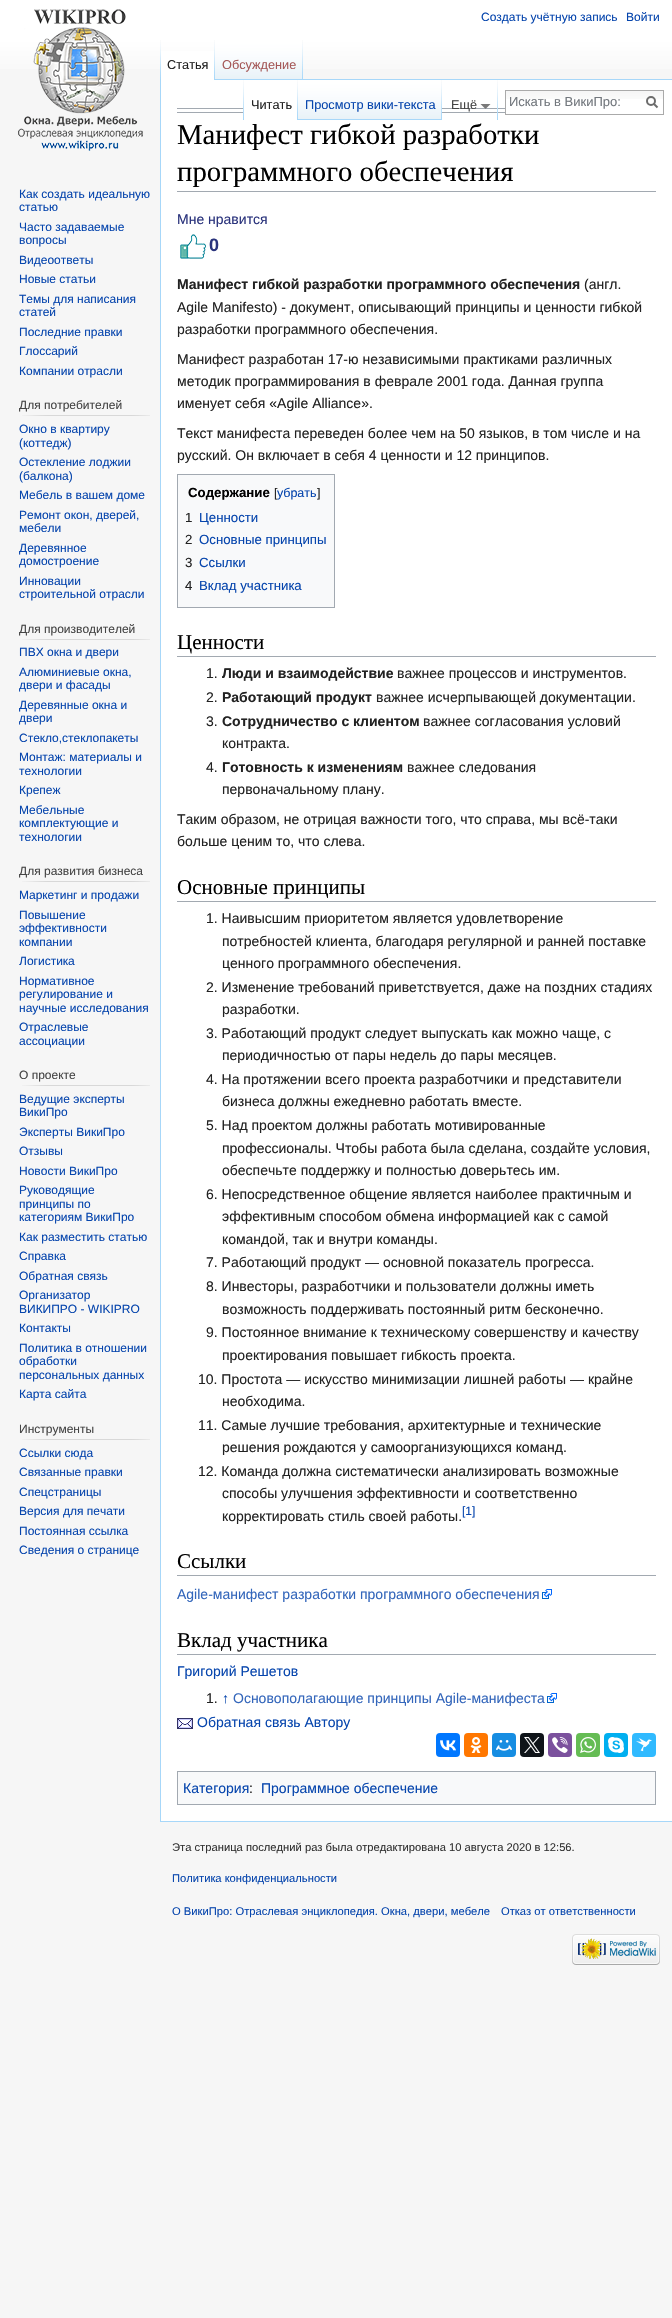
#include "include/core/SkBlurTypes.h"
#include "include/core/SkCanvas.h"
#include "include/core/SkData.h"
#include "include/core/SkFont.h"
#include "include/core/SkFontMgr.h"
#include "include/core/SkImage.h"
#include "include/core/SkMaskFilter.h"
#include "include/core/SkPaint.h"
#include "include/core/SkPathBuilder.h"
#include "include/core/SkTextBlob.h"
#include "include/effects/SkDashPathEffect.h"
#include "include/effects/SkGradientShader.h"
#include "include/utils/SkParsePath.h"

extern sk_sp<SkFontMgr> fontMgr;

void draw(SkCanvas* canvas) {
  SkPaint p;
  p.setAntiAlias(true);
  canvas->clear(SkColorSetRGB(246, 246, 246));
  {
    const SkColor colors[] = {SK_ColorWHITE, SkColorSetRGB(246, 246, 246)};
    const float stops[] = {0.5f, 1};
    const SkPoint ends[] = {{336, 0}, {336, 80}};
    p.setShader(SkGradientShader::MakeLinear(ends, colors, stops, 2, SkTileMode::kClamp));
    p.setAlpha(255);
  }
  canvas->drawRect(SkRect::MakeLTRB(0, 0, 672, 69), p);
  canvas->drawImageRect(SkImages::DeferredFromEncodedData(SkData::MakeFromFileName("images/1.png")), SkRect::MakeLTRB(160, 40, 161, 79), SkSamplingOptions());
  p.setShader(nullptr);
  p.setColor(SK_ColorWHITE);
  canvas->drawRect(SkRect::MakeLTRB(161, 51, 214, 80), p);
  canvas->drawImageRect(SkImages::DeferredFromEncodedData(SkData::MakeFromFileName("images/2.png")), SkRect::MakeLTRB(214, 40, 215, 80), SkSamplingOptions());
  canvas->drawImageRect(SkImages::DeferredFromEncodedData(SkData::MakeFromFileName("images/3.png")), SkRect::MakeLTRB(215, 40, 303, 80), SkSamplingOptions());
  canvas->drawImageRect(SkImages::DeferredFromEncodedData(SkData::MakeFromFileName("images/1.png")), SkRect::MakeLTRB(302, 40, 303, 79), SkSamplingOptions());
  canvas->drawRect(SkRect::MakeLTRB(161, 80, 672, 1821), p);
  p.setColor(SkColorSetRGB(162, 169, 177));
  canvas->drawRect(SkRect::MakeLTRB(177, 108, 505, 109), p);
  canvas->drawRect(SkRect::MakeLTRB(177, 112, 505, 113), p);
  canvas->drawImageRect(SkImages::DeferredFromEncodedData(SkData::MakeFromFileName("images/2.png")), SkRect::MakeLTRB(243, 80, 244, 120), SkSamplingOptions());
  p.setColor(SK_ColorWHITE);
  canvas->drawRect(SkRect::MakeLTRB(244, 108, 297, 113), p);
  canvas->drawImageRect(SkImages::DeferredFromEncodedData(SkData::MakeFromFileName("images/2.png")), SkRect::MakeLTRB(297, 80, 298, 120), SkSamplingOptions());
  canvas->drawImageRect(SkImages::DeferredFromEncodedData(SkData::MakeFromFileName("images/4.png")), SkRect::MakeLTRB(298, 80, 442, 120), SkSamplingOptions());
  canvas->drawImageRect(SkImages::DeferredFromEncodedData(SkData::MakeFromFileName("images/1.png")), SkRect::MakeLTRB(441, 80, 442, 119), SkSamplingOptions());
  canvas->drawImageRect(SkImages::DeferredFromEncodedData(SkData::MakeFromFileName("images/2.png")), SkRect::MakeLTRB(497, 80, 498, 120), SkSamplingOptions());
  p.setColor(SkColorSetRGB(121, 121, 121));
  canvas->drawPath(SkPathBuilder().moveTo(490.5f, 104).lineTo(485.5f, 109).lineTo(480.5f, 104).close().detach(), p);
  canvas->drawImageRect(SkImages::DeferredFromEncodedData(SkData::MakeFromFileName("images/5.png")), SkRect::MakeLTRB(506, 91, 663, 99), SkSamplingOptions());
  p.setStyle(SkPaint::kStroke_Style);
  p.setStrokeWidth(1);
  p.setColor(SkColorSetRGB(170, 170, 170));
  canvas->drawRect(SkRect::MakeLTRB(505.5f, 90.5f, 663.5f, 114.5f), p);
  p.setStrokeWidth(2);
  p.setColor(SkColorSetRGB(108, 108, 108));
  canvas->drawPath(SkPathBuilder().moveTo(657.5f, 107.5f).lineTo(653.5f, 103.5f).detach(), p);
  canvas->drawCircle(651, 101, 4, p);
  canvas->drawImageRect(SkImages::DeferredFromEncodedData(SkData::MakeFromFileName("images/6.png")), SkRect::MakeLTRB(18, 9, 143, 151), SkSamplingOptions());
  canvas->drawImageRect(SkImages::DeferredFromEncodedData(SkData::MakeFromFileName("images/7.png")), SkRect::MakeLTRB(22, 415, 150, 416), SkSamplingOptions());
  canvas->drawImageRect(SkImages::DeferredFromEncodedData(SkData::MakeFromFileName("images/7.png")), SkRect::MakeLTRB(22, 639, 150, 640), SkSamplingOptions());
  canvas->drawImageRect(SkImages::DeferredFromEncodedData(SkData::MakeFromFileName("images/7.png")), SkRect::MakeLTRB(22, 881, 150, 882), SkSamplingOptions());
  canvas->drawImageRect(SkImages::DeferredFromEncodedData(SkData::MakeFromFileName("images/7.png")), SkRect::MakeLTRB(22, 1085, 150, 1086), SkSamplingOptions());
  canvas->drawImageRect(SkImages::DeferredFromEncodedData(SkData::MakeFromFileName("images/7.png")), SkRect::MakeLTRB(22, 1439, 150, 1440), SkSamplingOptions());
  p.setStyle(SkPaint::kFill_Style);
  p.setColor(SkColorSetRGB(167, 215, 249));
  canvas->drawRect(SkRect::MakeLTRB(303, 79, 672, 80), p);
  canvas->drawRect(SkRect::MakeLTRB(160, 1821, 672, 1822), p);
  canvas->drawRect(SkRect::MakeLTRB(160, 79, 161, 1822), p);
  p.setColor(SkColorSetRGB(162, 169, 177));
  canvas->drawRect(SkRect::MakeLTRB(177, 191, 656, 192), p);
  canvas->drawImageRect(SkImages::DeferredFromEncodedData(SkData::MakeFromFileName("images/8.png")), SkRect::MakeLTRB(180, 234, 206, 259), SkSamplingOptions());
  p.setColor(SkColorSetRGB(248, 249, 250));
  canvas->drawRect(SkRect::MakeLTRB(177.5f, 474.5f, 334.5f, 607.5f), p);
  p.setStyle(SkPaint::kStroke_Style);
  p.setStrokeWidth(1);
  p.setColor(SkColorSetRGB(162, 169, 177));
  canvas->drawRect(SkRect::MakeLTRB(177.5f, 474.5f, 334.5f, 607.5f), p);
  p.setStyle(SkPaint::kFill_Style);
  canvas->drawRect(SkRect::MakeLTRB(177, 656, 656, 657), p);
  canvas->drawRect(SkRect::MakeLTRB(177, 901, 656, 902), p);
  canvas->drawRect(SkRect::MakeLTRB(177, 1575, 656, 1576), p);
  canvas->drawImageRect(SkImages::DeferredFromEncodedData(SkData::MakeFromFileName("images/9.png")), SkRect::MakeLTRB(542, 1589, 552, 1599), SkSamplingOptions());
  canvas->drawRect(SkRect::MakeLTRB(177, 1654, 656, 1655), p);
  canvas->drawImageRect(SkImages::DeferredFromEncodedData(SkData::MakeFromFileName("images/9.png")), SkRect::MakeLTRB(547, 1693, 557, 1703), SkSamplingOptions());
  canvas->drawImageRect(SkImages::DeferredFromEncodedData(SkData::MakeFromFileName("images/10.png")), SkRect::MakeLTRB(177, 1718, 193, 1729), SkSamplingOptions());
  p.setColor(SkColorSetRGB(0, 119, 255));
  canvas->drawRoundRect(SkRect::MakeLTRB(436, 1733, 460, 1757), 4, 4, p);
  canvas->drawImageRect(SkImages::DeferredFromEncodedData(SkData::MakeFromFileName("images/11.png")), SkRect::MakeLTRB(440, 1740, 456, 1751), SkSamplingOptions());
  p.setColor(SkColorSetRGB(255, 119, 0));
  canvas->drawRoundRect(SkRect::MakeLTRB(464, 1733, 488, 1757), 4, 4, p);
  canvas->drawImageRect(SkImages::DeferredFromEncodedData(SkData::MakeFromFileName("images/12.png")), SkRect::MakeLTRB(470, 1737, 482, 1753), SkSamplingOptions());
  p.setColor(SkColorSetRGB(22, 141, 226));
  canvas->drawRoundRect(SkRect::MakeLTRB(492, 1733, 516, 1757), 4, 4, p);
  canvas->drawImageRect(SkImages::DeferredFromEncodedData(SkData::MakeFromFileName("images/13.png")), SkRect::MakeLTRB(496, 1740, 512, 1751), SkSamplingOptions());
  p.setColor(SkColorSetRGB(15, 20, 25));
  canvas->drawRoundRect(SkRect::MakeLTRB(520, 1733, 544, 1757), 4, 4, p);
  canvas->drawImageRect(SkImages::DeferredFromEncodedData(SkData::MakeFromFileName("images/14.png")), SkRect::MakeLTRB(524, 1737, 540, 1753), SkSamplingOptions());
  p.setColor(SkColorSetRGB(123, 81, 157));
  canvas->drawRoundRect(SkRect::MakeLTRB(548, 1733, 572, 1757), 4, 4, p);
  canvas->drawImageRect(SkImages::DeferredFromEncodedData(SkData::MakeFromFileName("images/15.png")), SkRect::MakeLTRB(552, 1737, 568, 1753), SkSamplingOptions());
  p.setColor(SkColorSetRGB(101, 188, 84));
  canvas->drawRoundRect(SkRect::MakeLTRB(576, 1733, 600, 1757), 4, 4, p);
  canvas->drawImageRect(SkImages::DeferredFromEncodedData(SkData::MakeFromFileName("images/16.png")), SkRect::MakeLTRB(580, 1737, 596, 1753), SkSamplingOptions());
  p.setColor(SkColorSetRGB(0, 175, 240));
  canvas->drawRoundRect(SkRect::MakeLTRB(604, 1733, 628, 1757), 4, 4, p);
  canvas->drawImageRect(SkImages::DeferredFromEncodedData(SkData::MakeFromFileName("images/17.png")), SkRect::MakeLTRB(608, 1737, 624, 1753), SkSamplingOptions());
  p.setColor(SkColorSetRGB(48, 186, 255));
  canvas->drawRoundRect(SkRect::MakeLTRB(632, 1733, 656, 1757), 4, 4, p);
  canvas->drawImageRect(SkImages::DeferredFromEncodedData(SkData::MakeFromFileName("images/18.png")), SkRect::MakeLTRB(636, 1738, 652, 1752), SkSamplingOptions());
  p.setColor(SkColorSetRGB(248, 249, 250));
  canvas->drawRect(SkRect::MakeLTRB(177.5f, 1771.5f, 655.5f, 1804.5f), p);
  p.setStyle(SkPaint::kStroke_Style);
  p.setColor(SkColorSetRGB(162, 169, 177));
  canvas->drawRect(SkRect::MakeLTRB(177.5f, 1771.5f, 655.5f, 1804.5f), p);
  canvas->drawImageRect(SkImages::DeferredFromEncodedData(SkData::MakeFromFileName("images/19.png")), SkRect::MakeLTRB(572, 1934, 660, 1965), SkSamplingOptions());
  SkFont font1(fontMgr->matchFamilyStyle("Liberation Sans", SkFontStyle::Normal()), 12);
  font1.setSubpixel(true);
  p.setStyle(SkPaint::kFill_Style);
  p.setColor(SkColorSetRGB(6, 69, 173));
  canvas->drawString("Создать учётную запись", 481, 21, font1, p);
  canvas->drawString("Войти", 626, 21, font1, p);
  SkFont font2(fontMgr->matchFamilyStyle("Liberation Sans", SkFontStyle::Normal()), 12.75f);
  font2.setSubpixel(true);
  p.setColor(SkColorSetRGB(34, 34, 34));
  canvas->drawString("Статья", 167, 69, font2, p);
  p.setColor(SkColorSetRGB(165, 88, 88));
  canvas->drawString("Обсуждение", 222, 69, font2, p);
  p.setColor(SkColorSetRGB(34, 34, 34));
  canvas->drawString("Читать", 251, 109, font2, p);
  p.setColor(SkColorSetRGB(6, 69, 173));
  canvas->drawString("Просмотр вики-текста", 305, 109, font2, p);
  p.setColor(SkColorSetRGB(68, 68, 68));
  canvas->drawString("Ещё", 451, 109, font2, p);
  SkFont font3(fontMgr->matchFamilyStyle("Liberation Sans", SkFontStyle::Normal()), 13);
  font3.setSubpixel(true);
  p.setColor(SkColorSetRGB(114, 119, 125));
  canvas->drawString("Искать в ВикиПро:", 509, 106, font3, p);
  p.setColor(SkColorSetRGB(6, 69, 173));
  canvas->drawString("Как создать идеальную", 19, 198, font1, p);
  canvas->drawString("статью", 19, 211, font1, p);
  canvas->drawString("Часто задаваемые", 19, 231, font1, p);
  canvas->drawString("вопросы", 19, 244, font1, p);
  canvas->drawString("Видеоответы", 19, 264, font1, p);
  canvas->drawString("Новые статьи", 19, 283, font1, p);
  canvas->drawString("Темы для написания", 19, 303, font1, p);
  canvas->drawString("статей", 19, 316, font1, p);
  canvas->drawString("Последние правки", 19, 336, font1, p);
  canvas->drawString("Глоссарий", 19, 355, font1, p);
  canvas->drawString("Компании отрасли", 19, 375, font1, p);
  p.setColor(SkColorSetRGB(68, 68, 68));
  canvas->drawString("Для потребителей", 19, 409, font1, p);
  p.setColor(SkColorSetRGB(6, 69, 173));
  canvas->drawString("Окно в квартиру", 19, 433, font1, p);
  canvas->drawString("(коттедж)", 19, 447, font1, p);
  canvas->drawString("Остекление лоджии", 19, 466, font1, p);
  canvas->drawString("(балкона)", 19, 480, font1, p);
  canvas->drawString("Мебель в вашем доме", 19, 499, font1, p);
  canvas->drawString("Ремонт окон, дверей,", 19, 519, font1, p);
  canvas->drawString("мебели", 19, 532, font1, p);
  canvas->drawString("Деревянное", 19, 552, font1, p);
  canvas->drawString("домостроение", 19, 565, font1, p);
  canvas->drawString("Инновации", 19, 585, font1, p);
  canvas->drawString("строительной отрасли", 19, 598, font1, p);
  p.setColor(SkColorSetRGB(68, 68, 68));
  canvas->drawString("Для производителей", 19, 633, font1, p);
  p.setColor(SkColorSetRGB(6, 69, 173));
  canvas->drawString("ПВХ окна и двери", 19, 656, font1, p);
  canvas->drawString("Алюминиевые окна,", 19, 676, font1, p);
  canvas->drawString("двери и фасады", 19, 689, font1, p);
  canvas->drawString("Деревянные окна и", 19, 709, font1, p);
  canvas->drawString("двери", 19, 722, font1, p);
  canvas->drawString("Стекло,стеклопакеты", 19, 742, font1, p);
  canvas->drawString("Монтаж: материалы и", 19, 761, font1, p);
  canvas->drawString("технологии", 19, 775, font1, p);
  canvas->drawString("Крепеж", 19, 794, font1, p);
  canvas->drawString("Мебельные", 19, 814, font1, p);
  canvas->drawString("комплектующие и", 19, 827, font1, p);
  canvas->drawString("технологии", 19, 841, font1, p);
  p.setColor(SkColorSetRGB(68, 68, 68));
  canvas->drawString("Для развития бизнеса", 19, 875, font1, p);
  p.setColor(SkColorSetRGB(6, 69, 173));
  canvas->drawString("Маркетинг и продажи", 19, 899, font1, p);
  canvas->drawString("Повышение", 19, 919, font1, p);
  canvas->drawString("эффективности", 19, 932, font1, p);
  canvas->drawString("компании", 19, 946, font1, p);
  canvas->drawString("Логистика", 19, 965, font1, p);
  canvas->drawString("Нормативное", 19, 985, font1, p);
  canvas->drawString("регулирование и", 19, 998, font1, p);
  canvas->drawString("научные исследования", 19, 1012, font1, p);
  canvas->drawString("Отраслевые", 19, 1031, font1, p);
  canvas->drawString("ассоциации", 19, 1045, font1, p);
  p.setColor(SkColorSetRGB(68, 68, 68));
  canvas->drawString("О проекте", 19, 1079, font1, p);
  p.setColor(SkColorSetRGB(6, 69, 173));
  canvas->drawString("Ведущие эксперты", 19, 1103, font1, p);
  canvas->drawString("ВикиПро", 19, 1116, font1, p);
  canvas->drawString("Эксперты ВикиПро", 19, 1136, font1, p);
  canvas->drawString("Отзывы", 19, 1155, font1, p);
  canvas->drawString("Новости ВикиПро", 19, 1175, font1, p);
  canvas->drawString("Руководящие", 19, 1194, font1, p);
  canvas->drawString("принципы по", 19, 1208, font1, p);
  canvas->drawString("категориям ВикиПро", 19, 1221, font1, p);
  canvas->drawString("Как разместить статью", 19, 1241, font1, p);
  canvas->drawString("Справка", 19, 1260, font1, p);
  canvas->drawString("Обратная связь", 19, 1280, font1, p);
  canvas->drawString("Организатор", 19, 1299, font1, p);
  canvas->drawString("ВИКИПРО - WIKIPRO", 19, 1313, font1, p);
  canvas->drawString("Контакты", 19, 1332, font1, p);
  canvas->drawString("Политика в отношении", 19, 1352, font1, p);
  canvas->drawString("обработки", 19, 1365, font1, p);
  canvas->drawString("персональных данных", 19, 1379, font1, p);
  canvas->drawString("Карта сайта", 19, 1398, font1, p);
  p.setColor(SkColorSetRGB(68, 68, 68));
  canvas->drawString("Инструменты", 19, 1433, font1, p);
  p.setColor(SkColorSetRGB(6, 69, 173));
  canvas->drawString("Ссылки сюда", 19, 1457, font1, p);
  canvas->drawString("Связанные правки", 19, 1476, font1, p);
  canvas->drawString("Спецстраницы", 19, 1496, font1, p);
  canvas->drawString("Версия для печати", 19, 1515, font1, p);
  canvas->drawString("Постоянная ссылка", 19, 1535, font1, p);
  canvas->drawString("Сведения о странице", 19, 1554, font1, p);
  SkFont font4(fontMgr->matchFamilyStyle("Liberation Serif", SkFontStyle::Normal()), 28.75f);
  font4.setSubpixel(true);
  p.setColor(SK_ColorBLACK);
  canvas->drawString("Манифест гибкой разработки", 177, 144, font4, p);
  canvas->drawString("программного обеспечения", 177, 181, font4, p);
  SkFont font5(fontMgr->matchFamilyStyle("Liberation Sans", SkFontStyle::Normal()), 14);
  font5.setSubpixel(true);
  p.setColor(SkColorSetRGB(42, 51, 124));
  canvas->drawString("Мне нравится", 177, 224, font5, p);
  SkFont font6(fontMgr->matchFamilyStyle("Liberation Sans", SkFontStyle::Bold()), 18);
  font6.setSubpixel(true);
  canvas->drawString("0", 209, 251, font6, p);
  SkFont font7(fontMgr->matchFamilyStyle("Liberation Sans", SkFontStyle::Bold()), 14);
  font7.setSubpixel(true);
  p.setColor(SkColorSetRGB(34, 34, 34));
  canvas->drawString("Манифест гибкой разработки программного обеспечения", 177, 289, font7, p);
  canvas->drawString("(англ.", 584, 289, font5, p);
  canvas->drawString("Agile Manifesto) - документ, описывающий принципы и ценности гибкой", 177, 312, font5, p);
  canvas->drawString("разработки программного обеспечения.", 177, 334, font5, p);
  canvas->drawString("Манифест разработан 17-ю независимыми практиками различных", 177, 364, font5, p);
  canvas->drawString("методик программирования в феврале 2001 года. Данная группа", 177, 386, font5, p);
  canvas->drawString("именует себя «Agile Alliance».", 177, 408, font5, p);
  canvas->drawString("Текст манифеста переведен более чем на 50 языков, в том числе и на", 177, 438, font5, p);
  canvas->drawString("русский. Он включает в себя 4 ценности и 12 принципов.", 177, 460, font5, p);
  SkFont font8(fontMgr->matchFamilyStyle("Liberation Sans", SkFontStyle::Bold()), 13.25f);
  font8.setSubpixel(true);
  p.setColor(SK_ColorBLACK);
  canvas->drawString("Содержание", 188, 497, font8, p);
  SkFont font9(fontMgr->matchFamilyStyle("Liberation Sans", SkFontStyle::Normal()), 12.5f);
  font9.setSubpixel(true);
  p.setColor(SkColorSetRGB(34, 34, 34));
  canvas->drawString("[", 274, 497, font9, p);
  p.setColor(SkColorSetRGB(6, 69, 173));
  canvas->drawString("убрать", 277, 497, font9, p);
  p.setColor(SkColorSetRGB(34, 34, 34));
  canvas->drawString("]", 317, 497, font9, p);
  SkFont font10(fontMgr->matchFamilyStyle("Liberation Sans", SkFontStyle::Normal()), 13.25f);
  font10.setSubpixel(true);
  canvas->drawString("1", 185, 522, font10, p);
  p.setColor(SkColorSetRGB(6, 69, 173));
  canvas->drawString("Ценности", 199, 522, font10, p);
  p.setColor(SkColorSetRGB(34, 34, 34));
  canvas->drawString("2", 185, 544, font10, p);
  p.setColor(SkColorSetRGB(6, 69, 173));
  canvas->drawString("Основные принципы", 199, 544, font10, p);
  p.setColor(SkColorSetRGB(34, 34, 34));
  canvas->drawString("3", 185, 567, font10, p);
  p.setColor(SkColorSetRGB(6, 69, 173));
  canvas->drawString("Ссылки", 199, 567, font10, p);
  p.setColor(SkColorSetRGB(34, 34, 34));
  canvas->drawString("4", 185, 590, font10, p);
  p.setColor(SkColorSetRGB(6, 69, 173));
  canvas->drawString("Вклад участника", 199, 590, font10, p);
  SkFont font11(fontMgr->matchFamilyStyle("Liberation Serif", SkFontStyle::Normal()), 21);
  font11.setSubpixel(true);
  p.setColor(SK_ColorBLACK);
  canvas->drawString("Ценности", 177, 649, font11, p);
  p.setColor(SkColorSetRGB(34, 34, 34));
  canvas->drawString("1.", 206, 678, font5, p);
  canvas->drawString("Люди и взаимодействие", 222, 678, font7, p);
  canvas->drawString("важнее процессов и инструментов.", 397, 678, font5, p);
  canvas->drawString("2.", 206, 702, font5, p);
  canvas->drawString("Работающий продукт", 222, 702, font7, p);
  canvas->drawString("важнее исчерпывающей документации.", 376, 702, font5, p);
  canvas->drawString("3.", 206, 726, font5, p);
  canvas->drawString("Сотрудничество с клиентом", 222, 726, font7, p);
  canvas->drawString("важнее согласования условий", 423, 726, font5, p);
  canvas->drawString("контракта.", 222, 748, font5, p);
  canvas->drawString("4.", 206, 772, font5, p);
  canvas->drawString("Готовность к изменениям", 222, 772, font7, p);
  canvas->drawString("важнее следования", 407, 772, font5, p);
  canvas->drawString("первоначальному плану.", 222, 794, font5, p);
  canvas->drawString("Таким образом, не отрицая важности того, что справа, мы всё-таки", 177, 824, font5, p);
  canvas->drawString("больше ценим то, что слева.", 177, 846, font5, p);
  p.setColor(SK_ColorBLACK);
  canvas->drawString("Основные принципы", 177, 894, font11, p);
  p.setColor(SkColorSetRGB(34, 34, 34));
  canvas->drawString("1. Наивысшим приоритетом является удовлетворение", 206, 923, font5, p);
  canvas->drawString("потребностей клиента, благодаря регулярной и ранней поставке", 222, 946, font5, p);
  canvas->drawString("ценного программного обеспечения.", 222, 968, font5, p);
  canvas->drawString("2. Изменение требований приветствуется, даже на поздних стадиях", 206, 992, font5, p);
  canvas->drawString("разработки.", 222, 1014, font5, p);
  canvas->drawString("3. Работающий продукт следует выпускать как можно чаще, с", 206, 1038, font5, p);
  canvas->drawString("периодичностью от пары недель до пары месяцев.", 222, 1060, font5, p);
  canvas->drawString("4. На протяжении всего проекта разработчики и представители", 206, 1084, font5, p);
  canvas->drawString("бизнеса должны ежедневно работать вместе.", 222, 1106, font5, p);
  canvas->drawString("5. Над проектом должны работать мотивированные", 206, 1130, font5, p);
  canvas->drawString("профессионалы. Чтобы работа была сделана, создайте условия,", 222, 1153, font5, p);
  canvas->drawString("обеспечьте поддержку и полностью доверьтесь им.", 222, 1175, font5, p);
  canvas->drawString("6. Непосредственное общение является наиболее практичным и", 206, 1199, font5, p);
  canvas->drawString("эффективным способом обмена информацией как с самой", 222, 1221, font5, p);
  canvas->drawString("командой, так и внутри команды.", 222, 1244, font5, p);
  canvas->drawString("7. Работающий продукт — основной показатель прогресса.", 206, 1267, font5, p);
  canvas->drawString("8. Инвесторы, разработчики и пользователи должны иметь", 206, 1291, font5, p);
  canvas->drawString("возможность поддерживать постоянный ритм бесконечно.", 222, 1314, font5, p);
  canvas->drawString("9. Постоянное внимание к техническому совершенству и качеству", 206, 1337, font5, p);
  canvas->drawString("проектирования повышает гибкость проекта.", 222, 1360, font5, p);
  canvas->drawString("10. Простота — искусство минимизации лишней работы — крайне", 198, 1384, font5, p);
  canvas->drawString("необходима.", 222, 1406, font5, p);
  canvas->drawString("11. Самые лучшие требования, архитектурные и технические", 198, 1430, font5, p);
  canvas->drawString("решения рождаются у самоорганизующихся команд.", 222, 1452, font5, p);
  canvas->drawString("12. Команда должна систематически анализировать возможные", 198, 1476, font5, p);
  canvas->drawString("способы улучшения эффективности и соответственно", 222, 1498, font5, p);
  canvas->drawString("корректировать стиль своей работы.", 222, 1521, font5, p);
  p.setColor(SkColorSetRGB(6, 69, 173));
  canvas->drawString("[1]", 462, 1515, font1, p);
  p.setColor(SK_ColorBLACK);
  canvas->drawString("Ссылки", 177, 1568, font11, p);
  p.setColor(SkColorSetRGB(51, 102, 187));
  canvas->drawString("Agile-манифест разработки программного обеспечения", 177, 1599, font5, p);
  p.setColor(SK_ColorBLACK);
  canvas->drawString("Вклад участника", 177, 1647, font11, p);
  p.setColor(SkColorSetRGB(6, 69, 173));
  canvas->drawString("Григорий Решетов", 177, 1676, font5, p);
  p.setColor(SkColorSetRGB(34, 34, 34));
  canvas->drawString("1.", 206, 1703, font5, p);
  p.setColor(SkColorSetRGB(6, 69, 173));
  canvas->drawString("↑", 222, 1703, font5, p);
  p.setColor(SkColorSetRGB(51, 102, 187));
  canvas->drawString("Основополагающие принципы Agile-манифеста", 233, 1703, font5, p);
  p.setColor(SkColorSetRGB(6, 69, 173));
  canvas->drawString("Обратная связь Автору", 197, 1727, font5, p);
  canvas->drawString("Категория", 183, 1793, font5, p);
  p.setColor(SkColorSetRGB(34, 34, 34));
  canvas->drawString(":", 249, 1793, font5, p);
  p.setColor(SkColorSetRGB(6, 69, 173));
  canvas->drawString("Программное обеспечение", 261, 1793, font5, p);
  SkFont font12(fontMgr->matchFamilyStyle("Liberation Sans", SkFontStyle::Normal()), 11.2f);
  font12.setSubpixel(true);
  p.setColor(SkColorSetRGB(51, 51, 51));
  canvas->drawString("Эта страница последний раз была отредактирована 10 августа 2020 в 12:56.", 172, 1851, font12, p);
  p.setColor(SkColorSetRGB(6, 69, 173));
  canvas->drawString("Политика конфиденциальности", 172, 1882, font12, p);
  canvas->drawString("О ВикиПро: Отраслевая энциклопедия. Окна, двери, мебеле", 172, 1915, font12, p);
  canvas->drawString("Отказ от ответственности", 501, 1915, font12, p);
}
